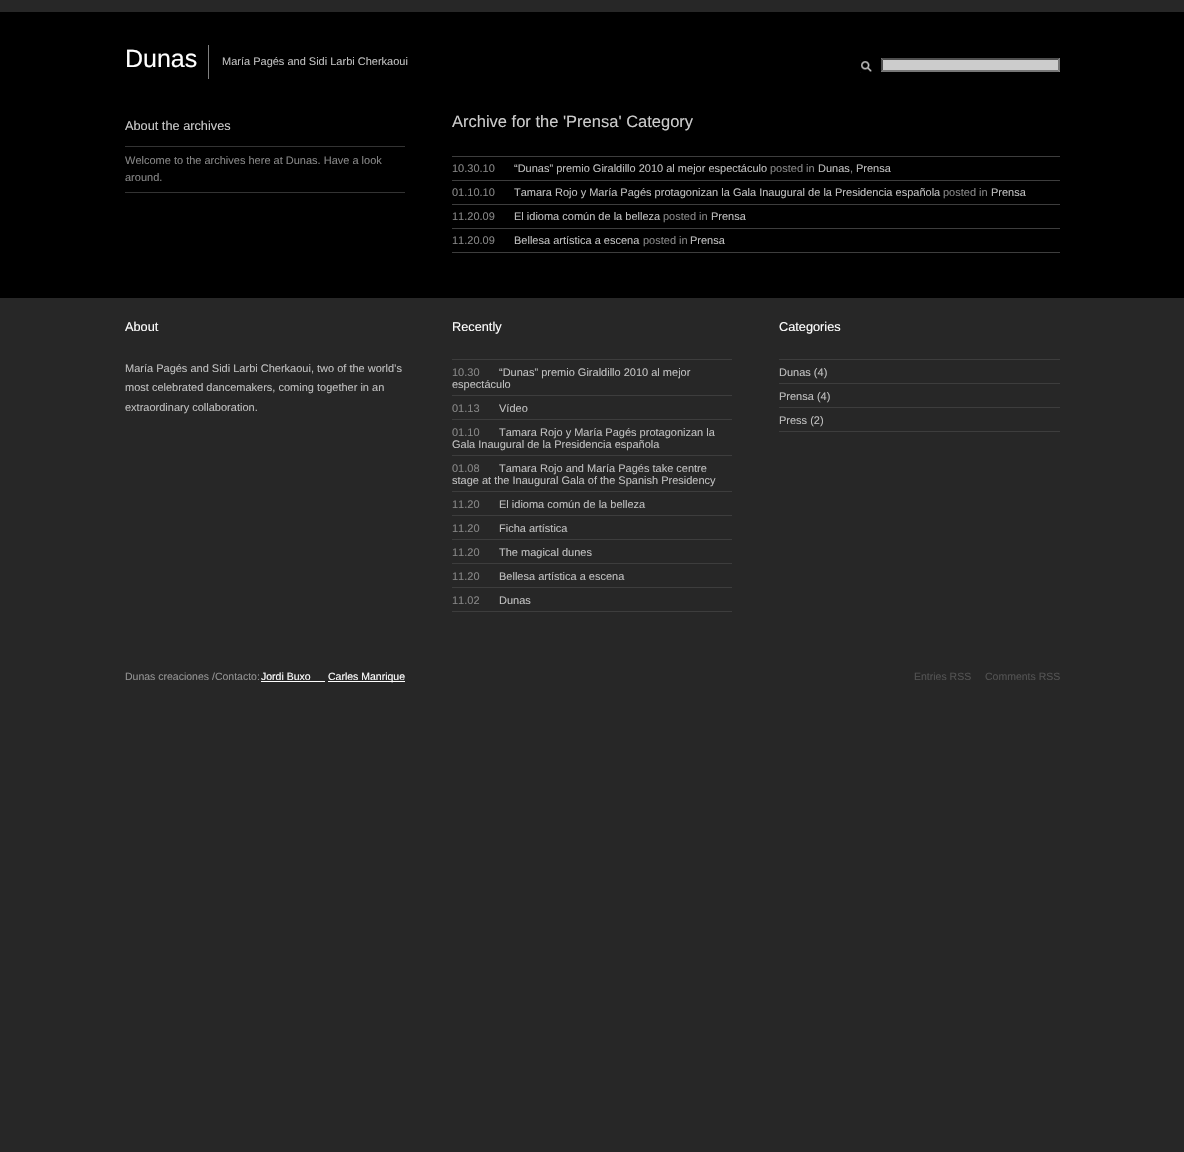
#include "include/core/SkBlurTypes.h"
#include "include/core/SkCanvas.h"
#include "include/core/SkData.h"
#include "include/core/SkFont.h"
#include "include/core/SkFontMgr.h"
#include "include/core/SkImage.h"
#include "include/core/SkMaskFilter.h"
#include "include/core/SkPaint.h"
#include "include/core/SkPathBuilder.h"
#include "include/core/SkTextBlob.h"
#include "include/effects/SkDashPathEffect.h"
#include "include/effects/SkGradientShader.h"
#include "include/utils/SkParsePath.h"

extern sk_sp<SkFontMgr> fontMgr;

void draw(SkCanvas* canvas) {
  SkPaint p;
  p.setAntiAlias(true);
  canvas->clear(SkColorSetRGB(39, 39, 39));
  p.setColor(SK_ColorBLACK);
  canvas->drawRect(SkRect::MakeLTRB(0, 12, 1184, 298), p);
  p.setColor(SkColorSetRGB(128, 128, 128));
  canvas->drawRect(SkRect::MakeLTRB(208, 45, 209, 79), p);
  canvas->drawImageRect(SkImages::DeferredFromEncodedData(SkData::MakeFromFileName("images/1.png")), SkRect::MakeLTRB(860, 60, 872, 73), SkSamplingOptions());
  p.setColor(SkColorSetRGB(204, 204, 204));
  canvas->drawRect(SkRect::MakeLTRB(881, 58, 1060, 72), p);
  p.setColor(SkColorSetRGB(79, 79, 79));
  canvas->drawPath(SkPathBuilder().moveTo(881, 58).lineTo(1060, 58).lineTo(1058, 60).lineTo(883, 60).close().detach(), p);
  p.setColor(SkColorSetRGB(118, 118, 118));
  canvas->drawPath(SkPathBuilder().moveTo(1060, 58).lineTo(1060, 72).lineTo(1058, 70).lineTo(1058, 60).close().detach(), p);
  canvas->drawPath(SkPathBuilder().moveTo(1060, 72).lineTo(881, 72).lineTo(883, 70).lineTo(1058, 70).close().detach(), p);
  p.setColor(SkColorSetRGB(79, 79, 79));
  canvas->drawPath(SkPathBuilder().moveTo(881, 72).lineTo(881, 58).lineTo(883, 60).lineTo(883, 70).close().detach(), p);
  p.setColor(SkColorSetRGB(51, 51, 51));
  canvas->drawRect(SkRect::MakeLTRB(125, 146, 405, 147), p);
  canvas->drawRect(SkRect::MakeLTRB(125, 192, 405, 193), p);
  p.setColor(SkColorSetRGB(61, 61, 61));
  canvas->drawRect(SkRect::MakeLTRB(452, 156, 1060, 157), p);
  canvas->drawRect(SkRect::MakeLTRB(452, 180, 1060, 181), p);
  canvas->drawRect(SkRect::MakeLTRB(452, 204, 1060, 205), p);
  canvas->drawRect(SkRect::MakeLTRB(452, 228, 1060, 229), p);
  canvas->drawRect(SkRect::MakeLTRB(452, 252, 1060, 253), p);
  canvas->drawRect(SkRect::MakeLTRB(452, 359, 732, 360), p);
  canvas->drawRect(SkRect::MakeLTRB(452, 395, 732, 396), p);
  canvas->drawRect(SkRect::MakeLTRB(452, 419, 732, 420), p);
  canvas->drawRect(SkRect::MakeLTRB(452, 455, 732, 456), p);
  canvas->drawRect(SkRect::MakeLTRB(452, 491, 732, 492), p);
  canvas->drawRect(SkRect::MakeLTRB(452, 515, 732, 516), p);
  canvas->drawRect(SkRect::MakeLTRB(452, 539, 732, 540), p);
  canvas->drawRect(SkRect::MakeLTRB(452, 563, 732, 564), p);
  canvas->drawRect(SkRect::MakeLTRB(452, 587, 732, 588), p);
  canvas->drawRect(SkRect::MakeLTRB(452, 611, 732, 612), p);
  canvas->drawRect(SkRect::MakeLTRB(779, 359, 1060, 360), p);
  canvas->drawRect(SkRect::MakeLTRB(779, 383, 1060, 384), p);
  canvas->drawRect(SkRect::MakeLTRB(779, 407, 1060, 408), p);
  canvas->drawRect(SkRect::MakeLTRB(779, 431, 1060, 432), p);
  p.setColor(SK_ColorWHITE);
  canvas->drawRect(SkRect::MakeLTRB(261, 681, 325, 682), p);
  canvas->drawRect(SkRect::MakeLTRB(328, 681, 405, 682), p);
  SkFont font1(fontMgr->matchFamilyStyle("Liberation Sans", SkFontStyle::Normal()), 25);
  font1.setSubpixel(true);
  canvas->drawString("Dunas", 125, 67, font1, p);
  SkFont font2(fontMgr->matchFamilyStyle("Liberation Sans", SkFontStyle::Normal()), 11);
  font2.setSubpixel(true);
  p.setColor(SkColorSetRGB(191, 191, 191));
  canvas->drawString("María Pagés and Sidi Larbi Cherkaoui", 222, 65, font2, p);
  SkFont font3(fontMgr->matchFamilyStyle("Liberation Sans", SkFontStyle::Normal()), 12.75f);
  font3.setSubpixel(true);
  p.setColor(SkColorSetRGB(204, 204, 204));
  canvas->drawString("About the archives", 125, 130, font3, p);
  p.setColor(SkColorSetRGB(133, 133, 133));
  canvas->drawString("Welcome to the archives here at Dunas. Have a look", 125, 164, font2, p);
  canvas->drawString("around.", 125, 181, font2, p);
  SkFont font4(fontMgr->matchFamilyStyle("Liberation Sans", SkFontStyle::Normal()), 16.5f);
  font4.setSubpixel(true);
  p.setColor(SkColorSetRGB(204, 204, 204));
  canvas->drawString("Archive for the 'Prensa' Category", 452, 127, font4, p);
  p.setColor(SkColorSetRGB(133, 133, 133));
  canvas->drawString("10.30.10", 452, 172, font2, p);
  p.setColor(SkColorSetRGB(191, 191, 191));
  canvas->drawString("“Dunas” premio Giraldillo 2010 al mejor espectáculo", 514, 172, font2, p);
  p.setColor(SkColorSetRGB(133, 133, 133));
  canvas->drawString("posted in", 770, 172, font2, p);
  p.setColor(SkColorSetRGB(191, 191, 191));
  canvas->drawString("Dunas", 818, 172, font2, p);
  p.setColor(SkColorSetRGB(133, 133, 133));
  canvas->drawString(",", 850, 172, font2, p);
  p.setColor(SkColorSetRGB(191, 191, 191));
  canvas->drawString("Prensa", 856, 172, font2, p);
  p.setColor(SkColorSetRGB(133, 133, 133));
  canvas->drawString("01.10.10", 452, 196, font2, p);
  p.setColor(SkColorSetRGB(191, 191, 191));
  canvas->drawString("Tamara Rojo y María Pagés protagonizan la Gala Inaugural de la Presidencia española", 514, 196, font2, p);
  p.setColor(SkColorSetRGB(133, 133, 133));
  canvas->drawString("posted in", 943, 196, font2, p);
  p.setColor(SkColorSetRGB(191, 191, 191));
  canvas->drawString("Prensa", 991, 196, font2, p);
  p.setColor(SkColorSetRGB(133, 133, 133));
  canvas->drawString("11.20.09", 452, 220, font2, p);
  p.setColor(SkColorSetRGB(191, 191, 191));
  canvas->drawString("El idioma común de la belleza", 514, 220, font2, p);
  p.setColor(SkColorSetRGB(133, 133, 133));
  canvas->drawString("posted in", 663, 220, font2, p);
  p.setColor(SkColorSetRGB(191, 191, 191));
  canvas->drawString("Prensa", 711, 220, font2, p);
  p.setColor(SkColorSetRGB(133, 133, 133));
  canvas->drawString("11.20.09", 452, 244, font2, p);
  p.setColor(SkColorSetRGB(191, 191, 191));
  canvas->drawString("Bellesa artística a escena", 514, 244, font2, p);
  p.setColor(SkColorSetRGB(133, 133, 133));
  canvas->drawString("posted in", 643, 244, font2, p);
  p.setColor(SkColorSetRGB(191, 191, 191));
  canvas->drawString("Prensa", 690, 244, font2, p);
  p.setColor(SK_ColorWHITE);
  canvas->drawString("About", 125, 331, font3, p);
  p.setColor(SkColorSetRGB(191, 191, 191));
  canvas->drawString("María Pagés and Sidi Larbi Cherkaoui, two of the world’s", 125, 372, font2, p);
  canvas->drawString("most celebrated dancemakers, coming together in an", 125, 391, font2, p);
  canvas->drawString("extraordinary collaboration.", 125, 411, font2, p);
  p.setColor(SK_ColorWHITE);
  canvas->drawString("Recently", 452, 331, font3, p);
  p.setColor(SkColorSetRGB(133, 133, 133));
  canvas->drawString("10.30", 452, 376, font2, p);
  p.setColor(SkColorSetRGB(191, 191, 191));
  canvas->drawString("“Dunas” premio Giraldillo 2010 al mejor", 499, 376, font2, p);
  canvas->drawString("espectáculo", 452, 388, font2, p);
  p.setColor(SkColorSetRGB(133, 133, 133));
  canvas->drawString("01.13", 452, 412, font2, p);
  p.setColor(SkColorSetRGB(191, 191, 191));
  canvas->drawString("Vídeo", 499, 412, font2, p);
  p.setColor(SkColorSetRGB(133, 133, 133));
  canvas->drawString("01.10", 452, 436, font2, p);
  p.setColor(SkColorSetRGB(191, 191, 191));
  canvas->drawString("Tamara Rojo y María Pagés protagonizan la", 499, 436, font2, p);
  canvas->drawString("Gala Inaugural de la Presidencia española", 452, 448, font2, p);
  p.setColor(SkColorSetRGB(133, 133, 133));
  canvas->drawString("01.08", 452, 472, font2, p);
  p.setColor(SkColorSetRGB(191, 191, 191));
  canvas->drawString("Tamara Rojo and María Pagés take centre", 499, 472, font2, p);
  canvas->drawString("stage at the Inaugural Gala of the Spanish Presidency", 452, 484, font2, p);
  p.setColor(SkColorSetRGB(133, 133, 133));
  canvas->drawString("11.20", 452, 508, font2, p);
  p.setColor(SkColorSetRGB(191, 191, 191));
  canvas->drawString("El idioma común de la belleza", 499, 508, font2, p);
  p.setColor(SkColorSetRGB(133, 133, 133));
  canvas->drawString("11.20", 452, 532, font2, p);
  p.setColor(SkColorSetRGB(191, 191, 191));
  canvas->drawString("Ficha artística", 499, 532, font2, p);
  p.setColor(SkColorSetRGB(133, 133, 133));
  canvas->drawString("11.20", 452, 556, font2, p);
  p.setColor(SkColorSetRGB(191, 191, 191));
  canvas->drawString("The magical dunes", 499, 556, font2, p);
  p.setColor(SkColorSetRGB(133, 133, 133));
  canvas->drawString("11.20", 452, 580, font2, p);
  p.setColor(SkColorSetRGB(191, 191, 191));
  canvas->drawString("Bellesa artística a escena", 499, 580, font2, p);
  p.setColor(SkColorSetRGB(133, 133, 133));
  canvas->drawString("11.02", 452, 604, font2, p);
  p.setColor(SkColorSetRGB(191, 191, 191));
  canvas->drawString("Dunas", 499, 604, font2, p);
  p.setColor(SK_ColorWHITE);
  canvas->drawString("Categories", 779, 331, font3, p);
  p.setColor(SkColorSetRGB(191, 191, 191));
  canvas->drawString("Dunas (4)", 779, 376, font2, p);
  canvas->drawString("Prensa (4)", 779, 400, font2, p);
  canvas->drawString("Press (2)", 779, 424, font2, p);
  SkFont font5(fontMgr->matchFamilyStyle("Liberation Sans", SkFontStyle::Normal()), 10.5f);
  font5.setSubpixel(true);
  p.setColor(SkColorSetRGB(147, 147, 147));
  canvas->drawString("Dunas creaciones /Contacto:", 125, 680, font5, p);
  p.setColor(SK_ColorWHITE);
  canvas->drawString("Jordi Buxo", 261, 680, font5, p);
  canvas->drawString("Carles Manrique", 328, 680, font5, p);
  p.setColor(SkColorSetRGB(82, 82, 82));
  canvas->drawString("Entries RSS", 914, 680, font5, p);
  canvas->drawString("Comments RSS", 985, 680, font5, p);
}
